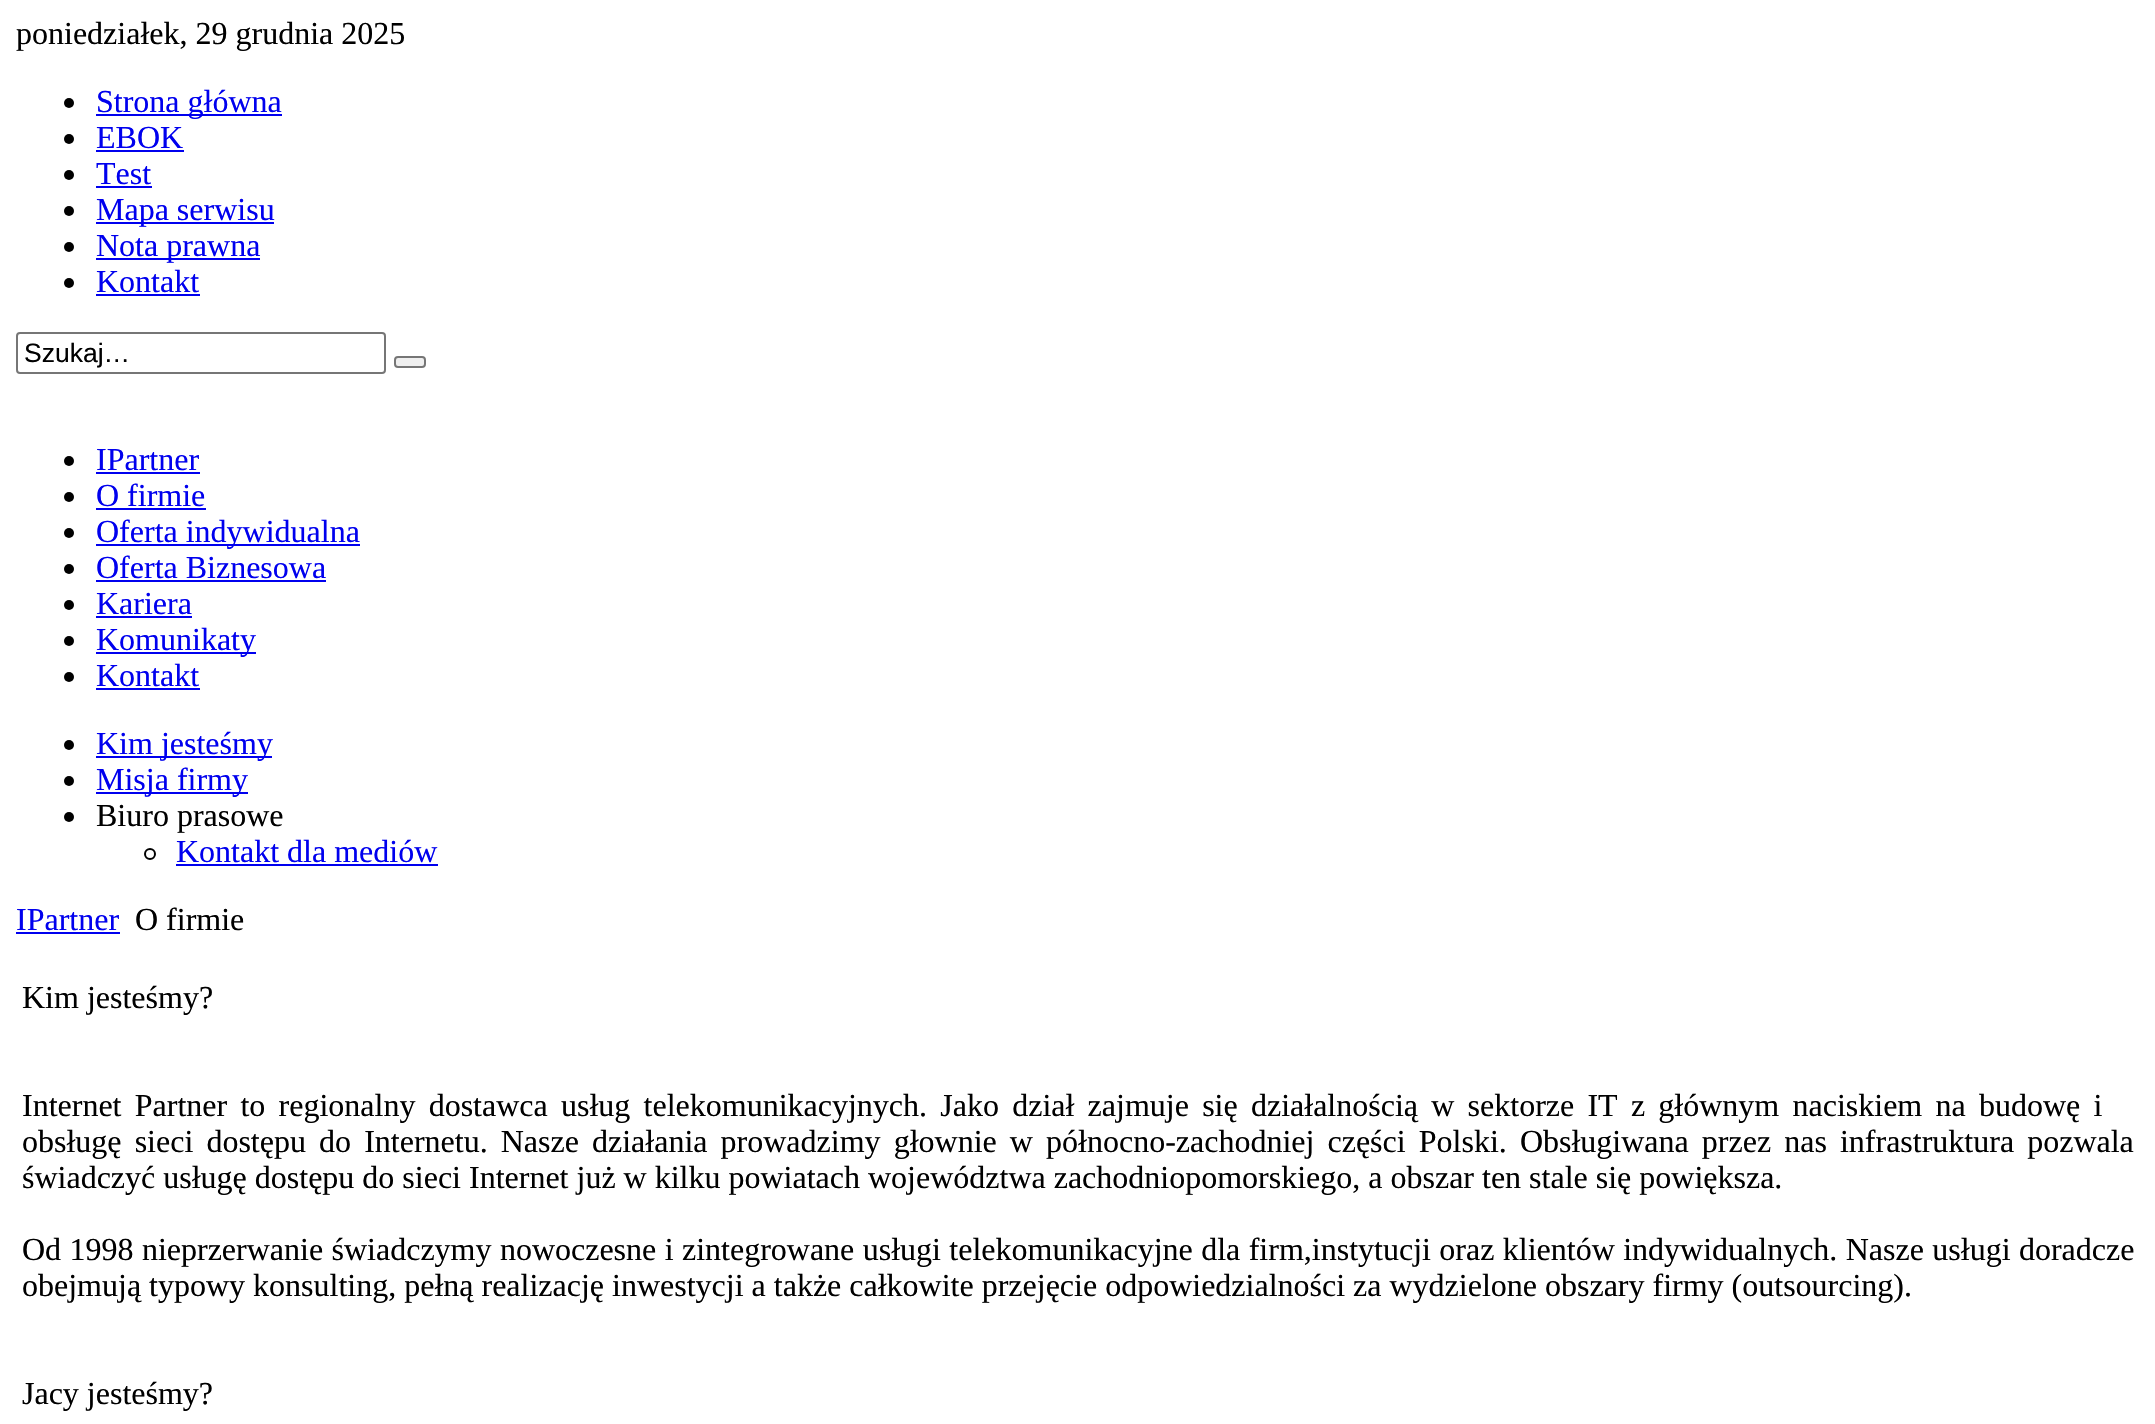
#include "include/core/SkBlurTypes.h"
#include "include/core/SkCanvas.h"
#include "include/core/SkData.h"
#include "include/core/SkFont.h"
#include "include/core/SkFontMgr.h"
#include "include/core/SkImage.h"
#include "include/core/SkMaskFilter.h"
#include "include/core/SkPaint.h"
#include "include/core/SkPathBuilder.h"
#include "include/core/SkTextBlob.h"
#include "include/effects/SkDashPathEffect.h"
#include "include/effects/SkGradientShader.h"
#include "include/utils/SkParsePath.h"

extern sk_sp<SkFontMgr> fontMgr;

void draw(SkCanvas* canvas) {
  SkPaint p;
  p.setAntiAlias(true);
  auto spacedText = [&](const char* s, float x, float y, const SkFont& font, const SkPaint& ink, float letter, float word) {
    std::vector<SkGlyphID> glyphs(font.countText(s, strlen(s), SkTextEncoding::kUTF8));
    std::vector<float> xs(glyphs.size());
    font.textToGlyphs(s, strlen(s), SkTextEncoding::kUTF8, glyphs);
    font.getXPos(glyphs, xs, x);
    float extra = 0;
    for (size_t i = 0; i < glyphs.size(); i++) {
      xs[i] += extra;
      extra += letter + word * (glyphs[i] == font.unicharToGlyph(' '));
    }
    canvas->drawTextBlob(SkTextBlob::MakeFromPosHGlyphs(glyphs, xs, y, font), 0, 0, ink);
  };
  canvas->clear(SK_ColorWHITE);
  p.setColor(SK_ColorBLACK);
  canvas->drawCircle(69, 103, 5, p);
  p.setColor(SkColorSetRGB(0, 0, 238));
  canvas->drawRect(SkRect::MakeLTRB(96, 114, 282, 116), p);
  p.setColor(SK_ColorBLACK);
  canvas->drawCircle(69, 139, 5, p);
  p.setColor(SkColorSetRGB(0, 0, 238));
  canvas->drawRect(SkRect::MakeLTRB(96, 150, 184, 152), p);
  p.setColor(SK_ColorBLACK);
  canvas->drawCircle(69, 175, 5, p);
  p.setColor(SkColorSetRGB(0, 0, 238));
  canvas->drawRect(SkRect::MakeLTRB(96, 186, 152, 188), p);
  p.setColor(SK_ColorBLACK);
  canvas->drawCircle(69, 211, 5, p);
  p.setColor(SkColorSetRGB(0, 0, 238));
  canvas->drawRect(SkRect::MakeLTRB(96, 222, 274, 224), p);
  p.setColor(SK_ColorBLACK);
  canvas->drawCircle(69, 247, 5, p);
  p.setColor(SkColorSetRGB(0, 0, 238));
  canvas->drawRect(SkRect::MakeLTRB(96, 258, 260, 260), p);
  p.setColor(SK_ColorBLACK);
  canvas->drawCircle(69, 283, 5, p);
  p.setColor(SkColorSetRGB(0, 0, 238));
  canvas->drawRect(SkRect::MakeLTRB(96, 294, 200, 296), p);
  p.setStyle(SkPaint::kStroke_Style);
  p.setStrokeWidth(2);
  p.setColor(SkColorSetRGB(118, 118, 118));
  canvas->drawRoundRect(SkRect::MakeLTRB(17, 333, 385, 373), 3, 3, p);
  p.setStyle(SkPaint::kFill_Style);
  p.setColor(SkColorSetRGB(239, 239, 239));
  canvas->drawRoundRect(SkRect::MakeLTRB(395, 357, 425, 367), 3, 3, p);
  p.setStyle(SkPaint::kStroke_Style);
  p.setColor(SkColorSetRGB(118, 118, 118));
  canvas->drawRoundRect(SkRect::MakeLTRB(395, 357, 425, 367), 3, 3, p);
  p.setStyle(SkPaint::kFill_Style);
  p.setColor(SK_ColorBLACK);
  canvas->drawCircle(69, 461, 5, p);
  p.setColor(SkColorSetRGB(0, 0, 238));
  canvas->drawRect(SkRect::MakeLTRB(96, 472, 200, 474), p);
  p.setColor(SK_ColorBLACK);
  canvas->drawCircle(69, 497, 5, p);
  p.setColor(SkColorSetRGB(0, 0, 238));
  canvas->drawRect(SkRect::MakeLTRB(96, 508, 206, 510), p);
  p.setColor(SK_ColorBLACK);
  canvas->drawCircle(69, 533, 5, p);
  p.setColor(SkColorSetRGB(0, 0, 238));
  canvas->drawRect(SkRect::MakeLTRB(96, 544, 360, 546), p);
  p.setColor(SK_ColorBLACK);
  canvas->drawCircle(69, 569, 5, p);
  p.setColor(SkColorSetRGB(0, 0, 238));
  canvas->drawRect(SkRect::MakeLTRB(96, 580, 326, 582), p);
  p.setColor(SK_ColorBLACK);
  canvas->drawCircle(69, 605, 5, p);
  p.setColor(SkColorSetRGB(0, 0, 238));
  canvas->drawRect(SkRect::MakeLTRB(96, 616, 192, 618), p);
  p.setColor(SK_ColorBLACK);
  canvas->drawCircle(69, 641, 5, p);
  p.setColor(SkColorSetRGB(0, 0, 238));
  canvas->drawRect(SkRect::MakeLTRB(96, 652, 256, 654), p);
  p.setColor(SK_ColorBLACK);
  canvas->drawCircle(69, 677, 5, p);
  p.setColor(SkColorSetRGB(0, 0, 238));
  canvas->drawRect(SkRect::MakeLTRB(96, 688, 200, 690), p);
  p.setColor(SK_ColorBLACK);
  canvas->drawCircle(69, 745, 5, p);
  p.setColor(SkColorSetRGB(0, 0, 238));
  canvas->drawRect(SkRect::MakeLTRB(96, 756, 272, 758), p);
  p.setColor(SK_ColorBLACK);
  canvas->drawCircle(69, 781, 5, p);
  p.setColor(SkColorSetRGB(0, 0, 238));
  canvas->drawRect(SkRect::MakeLTRB(96, 792, 248, 794), p);
  p.setColor(SK_ColorBLACK);
  canvas->drawCircle(69, 817, 5, p);
  p.setStyle(SkPaint::kStroke_Style);
  canvas->drawCircle(150, 854, 5, p);
  p.setStyle(SkPaint::kFill_Style);
  p.setColor(SkColorSetRGB(0, 0, 238));
  canvas->drawRect(SkRect::MakeLTRB(176, 864, 438, 866), p);
  canvas->drawRect(SkRect::MakeLTRB(16, 932, 120, 934), p);
  SkFont font1(fontMgr->matchFamilyStyle("Liberation Serif", SkFontStyle::Normal()), 32);
  font1.setSubpixel(true);
  p.setColor(SK_ColorBLACK);
  canvas->drawString("poniedziałek, 29 grudnia 2025", 16, 44, font1, p);
  p.setColor(SkColorSetRGB(0, 0, 238));
  canvas->drawString("Strona główna", 96, 112, font1, p);
  canvas->drawString("EBOK", 96, 148, font1, p);
  canvas->drawString("Test", 96, 184, font1, p);
  canvas->drawString("Mapa serwisu", 96, 220, font1, p);
  canvas->drawString("Nota prawna", 96, 256, font1, p);
  canvas->drawString("Kontakt", 96, 292, font1, p);
  SkFont font2(fontMgr->matchFamilyStyle("Liberation Sans", SkFontStyle::Normal()), 26.5f);
  font2.setSubpixel(true);
  p.setColor(SK_ColorBLACK);
  canvas->drawString("Szukaj…", 24, 362, font2, p);
  p.setColor(SkColorSetRGB(0, 0, 238));
  canvas->drawString("IPartner", 96, 470, font1, p);
  canvas->drawString("O firmie", 96, 506, font1, p);
  canvas->drawString("Oferta indywidualna", 96, 542, font1, p);
  canvas->drawString("Oferta Biznesowa", 96, 578, font1, p);
  canvas->drawString("Kariera", 96, 614, font1, p);
  canvas->drawString("Komunikaty", 96, 650, font1, p);
  canvas->drawString("Kontakt", 96, 686, font1, p);
  canvas->drawString("Kim jesteśmy", 96, 754, font1, p);
  canvas->drawString("Misja firmy", 96, 790, font1, p);
  p.setColor(SK_ColorBLACK);
  canvas->drawString("Biuro prasowe", 96, 826, font1, p);
  p.setColor(SkColorSetRGB(0, 0, 238));
  canvas->drawString("Kontakt dla mediów", 176, 862, font1, p);
  canvas->drawString("IPartner", 16, 930, font1, p);
  p.setColor(SK_ColorBLACK);
  canvas->drawString("O firmie", 135, 930, font1, p);
  canvas->drawString("Kim jesteśmy?", 22, 1008, font1, p);
  spacedText("Internet Partner to regionalny dostawca usług telekomunikacyjnych. Jako dział zajmuje się działalnością w sektorze IT z głównym naciskiem na budowę i", 22, 1116, font1, p, 0, 5.25f);
  spacedText("obsługę sieci dostępu do Internetu. Nasze działania prowadzimy głownie w północno-zachodniej części Polski. Obsługiwana przez nas infrastruktura pozwala", 22, 1152, font1, p, 0, 5.1f);
  canvas->drawString("świadczyć usługę dostępu do sieci Internet już w kilku powiatach województwa zachodniopomorskiego, a obszar ten stale się powiększa.", 22, 1188, font1, p);
  spacedText("Od 1998 nieprzerwanie świadczymy nowoczesne i zintegrowane usługi telekomunikacyjne dla firm,instytucji oraz klientów indywidualnych. Nasze usługi doradcze", 22, 1260, font1, p, 0, 0.4f);
  canvas->drawString("obejmują typowy konsulting, pełną realizację inwestycji a także całkowite przejęcie odpowiedzialności za wydzielone obszary firmy (outsourcing).", 22, 1296, font1, p);
  canvas->drawString("Jacy jesteśmy?", 22, 1404, font1, p);
}
